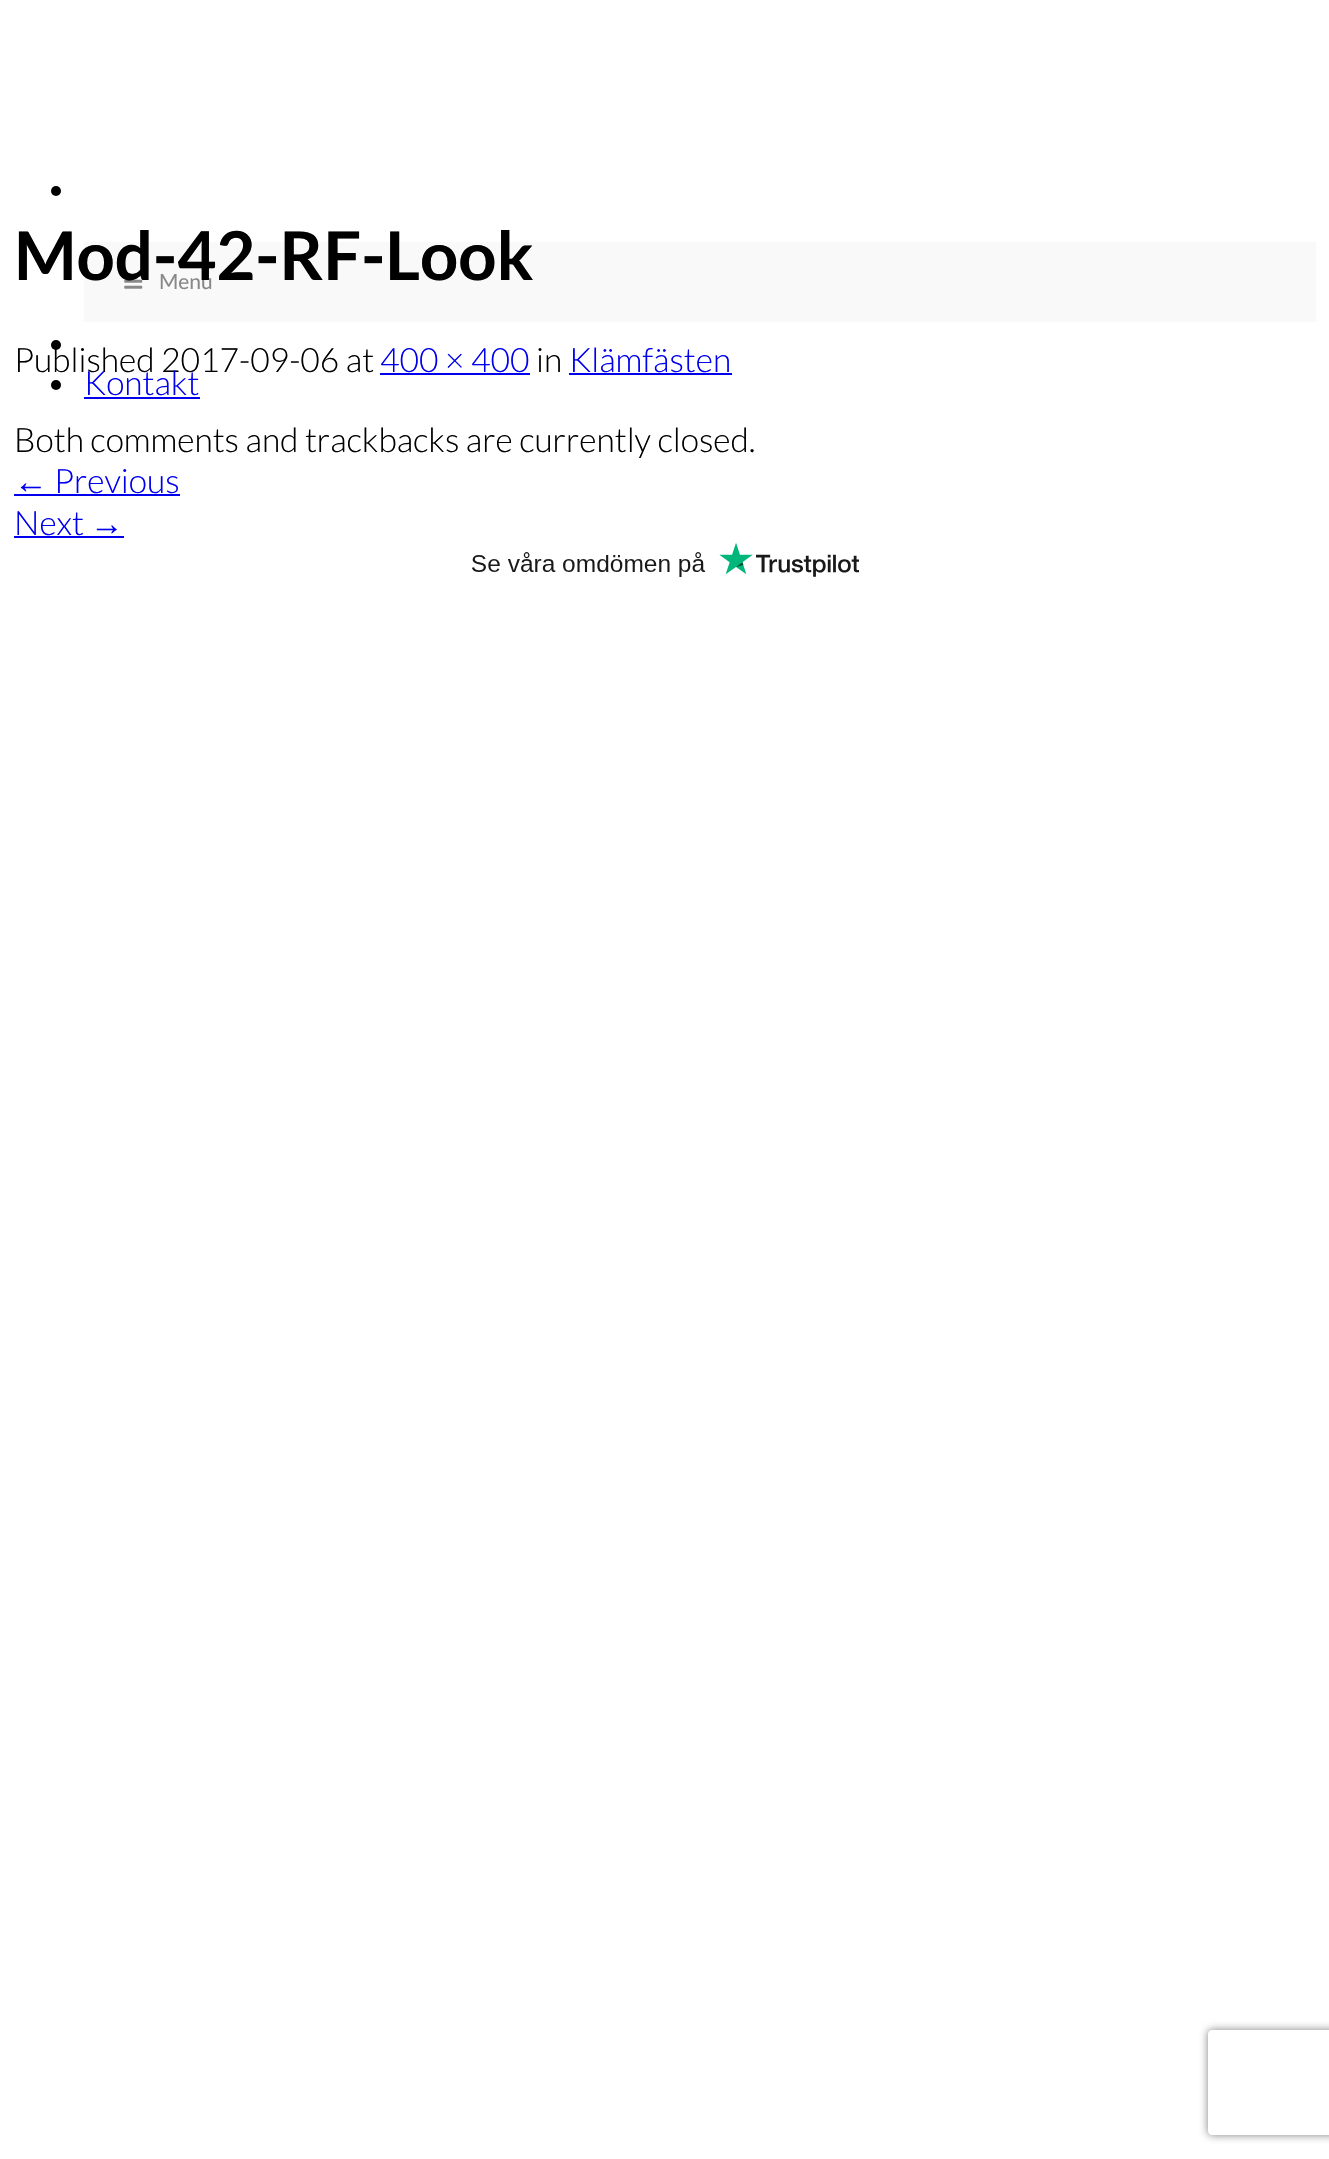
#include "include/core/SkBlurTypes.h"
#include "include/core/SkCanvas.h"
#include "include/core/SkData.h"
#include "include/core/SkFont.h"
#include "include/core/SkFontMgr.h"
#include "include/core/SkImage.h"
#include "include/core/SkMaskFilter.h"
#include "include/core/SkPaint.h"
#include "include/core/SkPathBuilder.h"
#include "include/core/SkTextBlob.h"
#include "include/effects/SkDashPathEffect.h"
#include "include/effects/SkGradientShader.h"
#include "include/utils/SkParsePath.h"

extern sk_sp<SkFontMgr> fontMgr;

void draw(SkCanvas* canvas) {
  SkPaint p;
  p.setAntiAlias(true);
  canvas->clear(SK_ColorWHITE);
  p.setColor(SkColorSetRGB(0, 0, 238));
  canvas->drawRect(SkRect::MakeLTRB(380, 373, 530, 375), p);
  canvas->drawRect(SkRect::MakeLTRB(569, 373, 732, 375), p);
  canvas->drawRect(SkRect::MakeLTRB(14, 494, 180, 496), p);
  canvas->drawRect(SkRect::MakeLTRB(14, 536, 124, 538), p);
  p.setColor(SK_ColorBLACK);
  canvas->drawCircle(56, 191, 5, p);
  p.setColor(SkColorSetRGB(249, 249, 249));
  canvas->drawRect(SkRect::MakeLTRB(84, 242, 1316, 322), p);
  canvas->drawImageRect(SkImages::DeferredFromEncodedData(SkData::MakeFromFileName("images/1.png")), SkRect::MakeLTRB(124, 273, 143, 289), SkSamplingOptions());
  p.setColor(SK_ColorBLACK);
  canvas->drawCircle(56, 345, 5, p);
  canvas->drawCircle(56, 385, 5, p);
  p.setColor(SkColorSetRGB(0, 0, 238));
  canvas->drawRect(SkRect::MakeLTRB(84, 397, 200, 399), p);
  canvas->drawImageRect(SkImages::DeferredFromEncodedData(SkData::MakeFromFileName("images/2.png")), SkRect::MakeLTRB(472, 543, 859, 577), SkSamplingOptions());
  canvas->save();
  canvas->clipPath(SkPathBuilder(SkPathFillType::kEvenOdd).moveTo(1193, 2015).lineTo(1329, 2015).lineTo(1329, 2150).lineTo(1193, 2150).close().moveTo(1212, 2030).lineTo(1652, 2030).cubicTo(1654, 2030, 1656, 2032, 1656, 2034).lineTo(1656, 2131).cubicTo(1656, 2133, 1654, 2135, 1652, 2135).lineTo(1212, 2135).cubicTo(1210, 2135, 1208, 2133, 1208, 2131).lineTo(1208, 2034).cubicTo(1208, 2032, 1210, 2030, 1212, 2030).close().detach(), true);
  p.setColor(SkColorSetRGB(128, 128, 128));
  p.setMaskFilter(SkMaskFilter::MakeBlur(kNormal_SkBlurStyle, 4.5f));
  canvas->drawRoundRect(SkRect::MakeLTRB(1208, 2030, 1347, 2135), 4, 4, p);
  p.setMaskFilter(nullptr);
  canvas->restore();
  SkFont font1(fontMgr->matchFamilyStyle("Lato", SkFontStyle(300, SkFontStyle::kNormal_Width, SkFontStyle::kUpright_Slant)), 33.6f);
  font1.setSubpixel(true);
  p.setColor(SK_ColorBLACK);
  canvas->drawString("Published 2017-09-06 at", 14, 372, font1, p);
  p.setColor(SkColorSetRGB(0, 0, 238));
  canvas->drawString("400 × 400", 380, 372, font1, p);
  p.setColor(SK_ColorBLACK);
  canvas->drawString("in", 536, 372, font1, p);
  p.setColor(SkColorSetRGB(0, 0, 238));
  canvas->drawString("Klämfästen", 569, 372, font1, p);
  p.setColor(SK_ColorBLACK);
  canvas->drawString("Both comments and trackbacks are currently closed.", 14, 452, font1, p);
  SkFont font2(fontMgr->matchFamilyStyle("Liberation Sans", SkFontStyle::Normal()), 33.6f);
  font2.setSubpixel(true);
  p.setColor(SkColorSetRGB(0, 0, 238));
  canvas->drawString("←", 14, 493, font2, p);
  canvas->drawString("Previous", 54, 493, font1, p);
  canvas->drawString("Next", 14, 535, font1, p);
  canvas->drawString("→", 90, 535, font2, p);
  SkFont font3(fontMgr->matchFamilyStyle("Lato", SkFontStyle::Normal()), 21);
  font3.setSubpixel(true);
  p.setColor(SkColorSetRGB(136, 136, 136));
  canvas->drawString("Menu", 159, 289, font3, p);
  SkFont font4(fontMgr->matchFamilyStyle("Lato", SkFontStyle::Bold()), 67.25f);
  font4.setSubpixel(true);
  p.setColor(SK_ColorBLACK);
  canvas->drawString("Mod-42-RF-Look", 14, 280, font4, p);
  p.setColor(SkColorSetRGB(0, 0, 238));
  canvas->drawString("Kontakt", 84, 395, font1, p);
}
